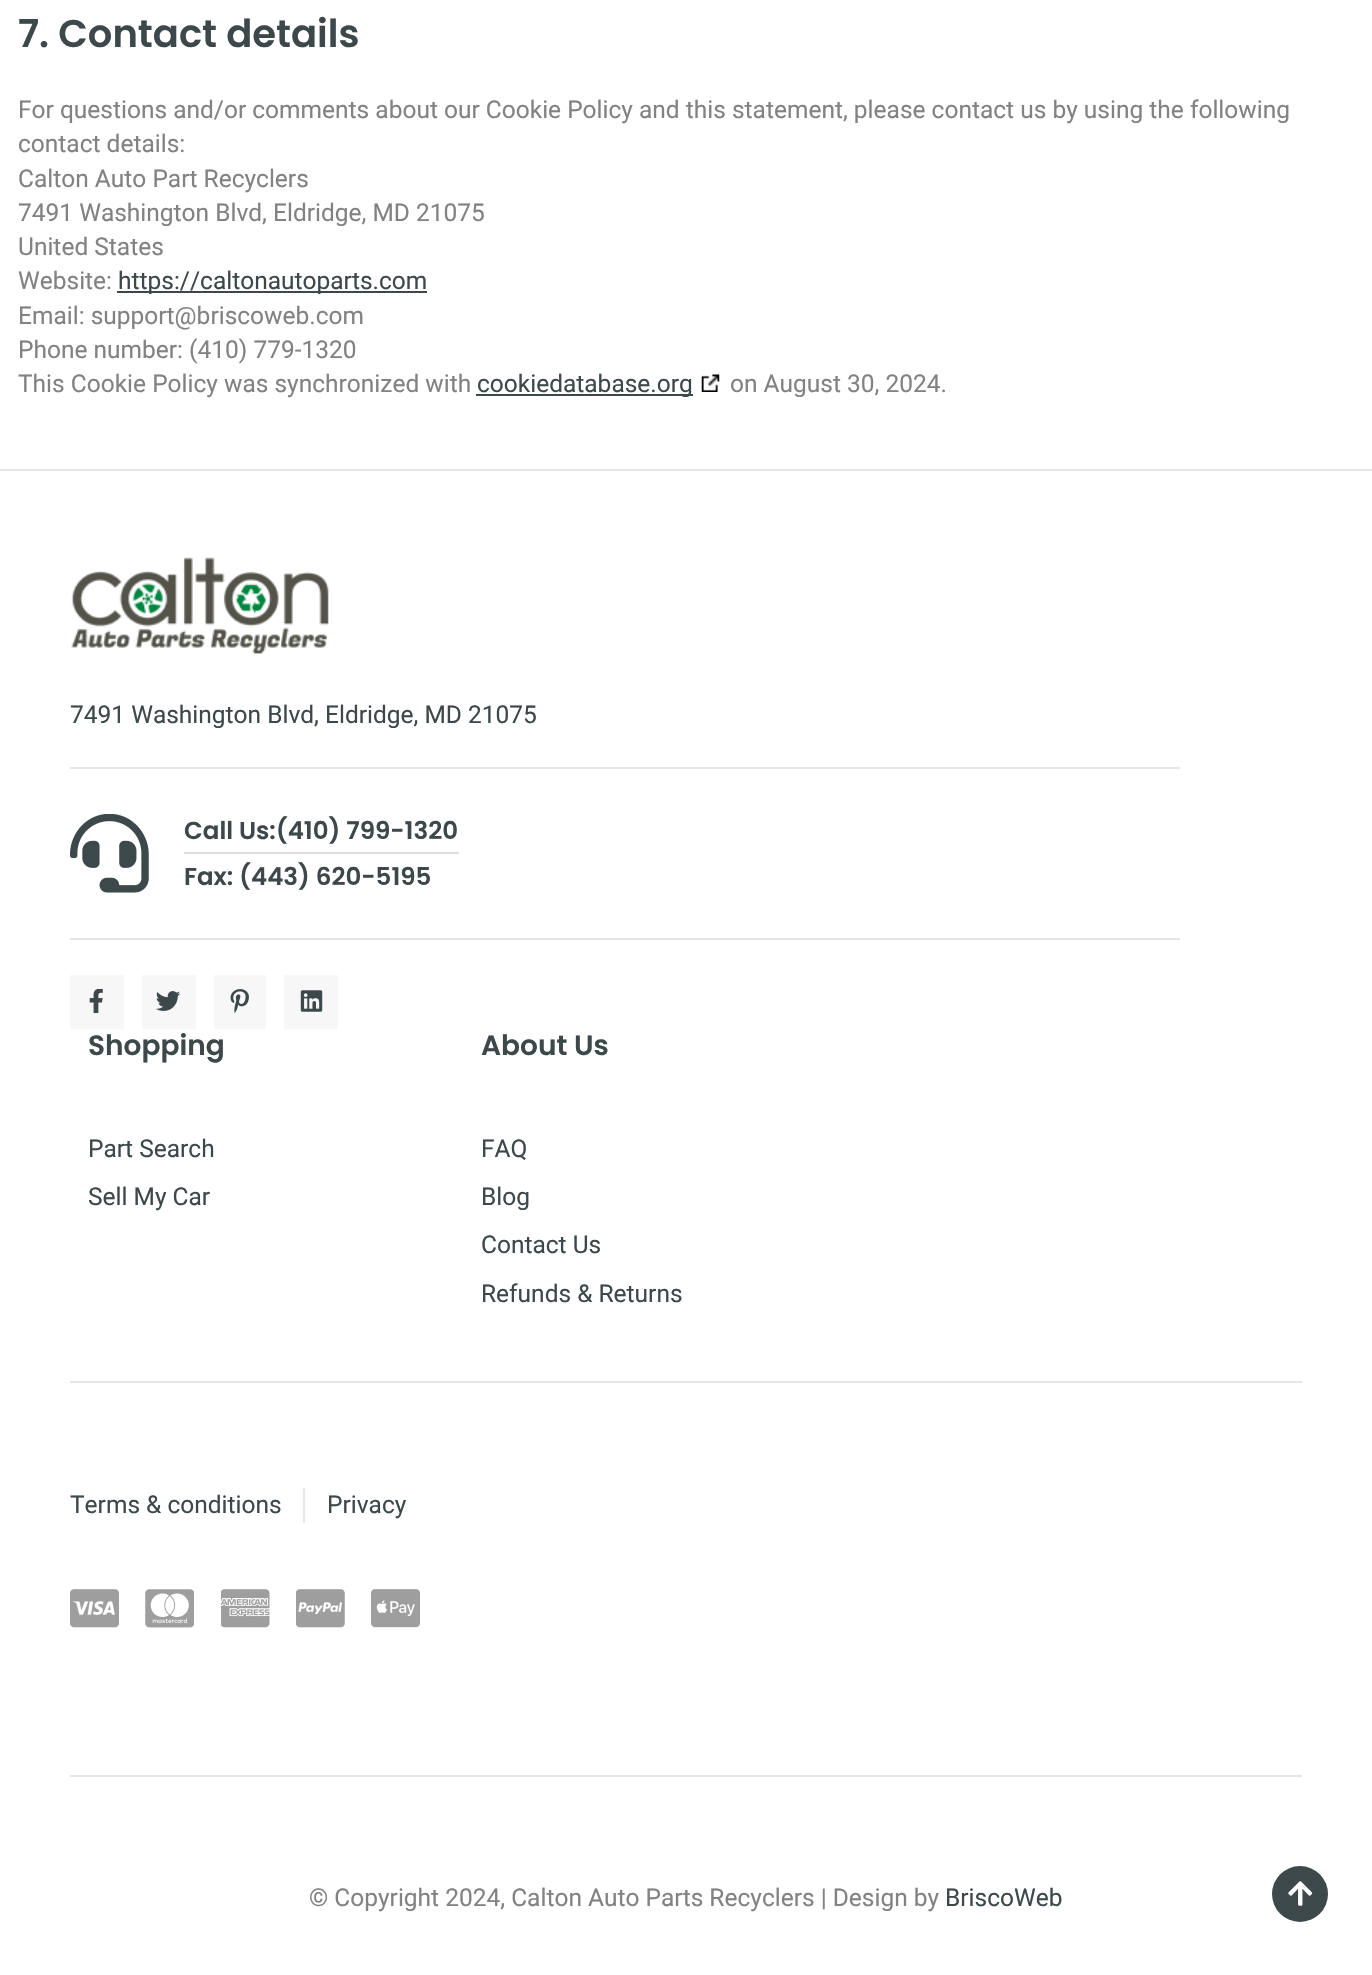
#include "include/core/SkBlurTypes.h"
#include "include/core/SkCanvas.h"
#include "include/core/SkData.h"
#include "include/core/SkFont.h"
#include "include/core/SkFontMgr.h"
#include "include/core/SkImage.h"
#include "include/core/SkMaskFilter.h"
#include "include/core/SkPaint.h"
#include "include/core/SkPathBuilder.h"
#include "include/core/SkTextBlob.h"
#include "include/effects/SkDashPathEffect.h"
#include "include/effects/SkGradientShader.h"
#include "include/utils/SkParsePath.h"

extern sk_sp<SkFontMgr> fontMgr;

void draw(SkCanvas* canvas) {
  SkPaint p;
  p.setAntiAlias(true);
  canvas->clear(SK_ColorWHITE);
  p.setColor(SkColorSetRGB(61, 72, 74));
  canvas->drawRect(SkRect::MakeLTRB(117, 291, 427, 293), p);
  canvas->drawRect(SkRect::MakeLTRB(476, 394, 693, 396), p);
  canvas->drawImageRect(SkImages::DeferredFromEncodedData(SkData::MakeFromFileName("images/1.png")), SkRect::MakeLTRB(701, 374, 720, 392), SkSamplingOptions());
  p.setColor(SkColorSetRGB(230, 230, 230));
  canvas->drawRect(SkRect::MakeLTRB(0, 469, 1372, 471), p);
  canvas->drawImageRect(SkImages::DeferredFromEncodedData(SkData::MakeFromFileName("images/2.png")), SkRect::MakeLTRB(71, 557, 329, 654), SkSamplingOptions());
  canvas->drawRect(SkRect::MakeLTRB(70, 767, 1180, 769), p);
  canvas->drawImageRect(SkImages::DeferredFromEncodedData(SkData::MakeFromFileName("images/3.png")), SkRect::MakeLTRB(70, 814, 149, 893), SkSamplingOptions());
  p.setColor(SkColorSetRGB(221, 221, 221));
  canvas->drawRect(SkRect::MakeLTRB(184, 852, 459, 854), p);
  p.setColor(SkColorSetRGB(230, 230, 230));
  canvas->drawRect(SkRect::MakeLTRB(70, 938, 1180, 940), p);
  p.setColor(SkColorSetRGB(247, 247, 247));
  canvas->drawRect(SkRect::MakeLTRB(70, 975, 124, 1029), p);
  canvas->drawImageRect(SkImages::DeferredFromEncodedData(SkData::MakeFromFileName("images/4.png")), SkRect::MakeLTRB(89, 989, 103, 1013), SkSamplingOptions());
  canvas->drawRect(SkRect::MakeLTRB(142, 975, 196, 1029), p);
  canvas->drawImageRect(SkImages::DeferredFromEncodedData(SkData::MakeFromFileName("images/5.png")), SkRect::MakeLTRB(156, 991, 180, 1011), SkSamplingOptions());
  canvas->drawRect(SkRect::MakeLTRB(214, 975, 266, 1029), p);
  canvas->drawImageRect(SkImages::DeferredFromEncodedData(SkData::MakeFromFileName("images/6.png")), SkRect::MakeLTRB(230, 989, 249, 1013), SkSamplingOptions());
  canvas->drawRect(SkRect::MakeLTRB(284, 975, 338, 1029), p);
  canvas->drawImageRect(SkImages::DeferredFromEncodedData(SkData::MakeFromFileName("images/7.png")), SkRect::MakeLTRB(300, 990, 323, 1012), SkSamplingOptions());
  p.setColor(SkColorSetRGB(230, 230, 230));
  canvas->drawRect(SkRect::MakeLTRB(70, 1381, 1302, 1383), p);
  canvas->drawRect(SkRect::MakeLTRB(303, 1488, 305, 1523), p);
  canvas->drawImageRect(SkImages::DeferredFromEncodedData(SkData::MakeFromFileName("images/8.png")), SkRect::MakeLTRB(70, 1589, 119, 1628), SkSamplingOptions());
  canvas->drawImageRect(SkImages::DeferredFromEncodedData(SkData::MakeFromFileName("images/9.png")), SkRect::MakeLTRB(145, 1589, 194, 1628), SkSamplingOptions());
  canvas->drawImageRect(SkImages::DeferredFromEncodedData(SkData::MakeFromFileName("images/10.png")), SkRect::MakeLTRB(221, 1589, 270, 1628), SkSamplingOptions());
  canvas->drawImageRect(SkImages::DeferredFromEncodedData(SkData::MakeFromFileName("images/11.png")), SkRect::MakeLTRB(296, 1589, 345, 1628), SkSamplingOptions());
  canvas->drawImageRect(SkImages::DeferredFromEncodedData(SkData::MakeFromFileName("images/12.png")), SkRect::MakeLTRB(371, 1589, 420, 1628), SkSamplingOptions());
  canvas->drawRect(SkRect::MakeLTRB(70, 1775, 1302, 1777), p);
  p.setColor(SkColorSetRGB(61, 72, 74));
  canvas->drawCircle(1300, 1894, 28, p);
  canvas->drawImageRect(SkImages::DeferredFromEncodedData(SkData::MakeFromFileName("images/13.png")), SkRect::MakeLTRB(1288, 1881, 1313, 1906), SkSamplingOptions());
  SkFont font1(fontMgr->matchFamilyStyle("Poppins", SkFontStyle(600, SkFontStyle::kNormal_Width, SkFontStyle::kUpright_Slant)), 38.5f);
  font1.setSubpixel(true);
  canvas->drawString("7. Contact details", 18, 47, font1, p);
  SkFont font2(fontMgr->matchFamilyStyle("Roboto", SkFontStyle::Normal()), 24.5f);
  font2.setSubpixel(true);
  p.setColor(SkColorSetRGB(130, 130, 130));
  canvas->drawString("For questions and/or comments about our Cookie Policy and this statement, please contact us by using the following", 18, 118, font2, p);
  canvas->drawString("contact details:", 18, 152, font2, p);
  canvas->drawString("Calton Auto Part Recyclers", 18, 187, font2, p);
  canvas->drawString("7491 Washington Blvd, Eldridge, MD 21075", 18, 221, font2, p);
  canvas->drawString("United States", 18, 255, font2, p);
  canvas->drawString("Website:", 18, 289, font2, p);
  p.setColor(SkColorSetRGB(61, 72, 74));
  canvas->drawString("https://caltonautoparts.com", 118, 289, font2, p);
  p.setColor(SkColorSetRGB(130, 130, 130));
  canvas->drawString("Email: support@briscoweb.com", 18, 324, font2, p);
  canvas->drawString("Phone number: (410) 779-1320", 18, 358, font2, p);
  canvas->drawString("This Cookie Policy was synchronized with", 18, 392, font2, p);
  p.setColor(SkColorSetRGB(61, 72, 74));
  canvas->drawString("cookiedatabase.org", 477, 392, font2, p);
  p.setColor(SkColorSetRGB(130, 130, 130));
  canvas->drawString("on August 30, 2024.", 730, 392, font2, p);
  p.setColor(SkColorSetRGB(61, 72, 74));
  canvas->drawString("7491 Washington Blvd, Eldridge, MD 21075", 70, 723, font2, p);
  SkFont font3(fontMgr->matchFamilyStyle("Poppins", SkFontStyle(600, SkFontStyle::kNormal_Width, SkFontStyle::kUpright_Slant)), 24.5f);
  font3.setSubpixel(true);
  canvas->drawString("Call Us:(410) 799-1320", 184, 839, font3, p);
  canvas->drawString("Fax: (443) 620-5195", 184, 885, font3, p);
  SkFont font4(fontMgr->matchFamilyStyle("Poppins", SkFontStyle(600, SkFontStyle::kNormal_Width, SkFontStyle::kUpright_Slant)), 28);
  font4.setSubpixel(true);
  canvas->drawString("Shopping", 88, 1055, font4, p);
  canvas->drawString("Part Search", 88, 1157, font2, p);
  canvas->drawString("Sell My Car", 88, 1205, font2, p);
  canvas->drawString("About Us", 481, 1055, font4, p);
  canvas->drawString("FAQ", 481, 1157, font2, p);
  canvas->drawString("Blog", 481, 1205, font2, p);
  canvas->drawString("Contact Us", 481, 1253, font2, p);
  canvas->drawString("Refunds & Returns", 481, 1302, font2, p);
  canvas->drawString("Terms & conditions", 70, 1513, font2, p);
  canvas->drawString("Privacy", 327, 1513, font2, p);
  p.setColor(SkColorSetRGB(130, 130, 130));
  canvas->drawString("© Copyright 2024, Calton Auto Parts Recyclers | Design by", 309, 1906, font2, p);
  p.setColor(SkColorSetRGB(61, 72, 74));
  canvas->drawString("BriscoWeb", 945, 1906, font2, p);
}
